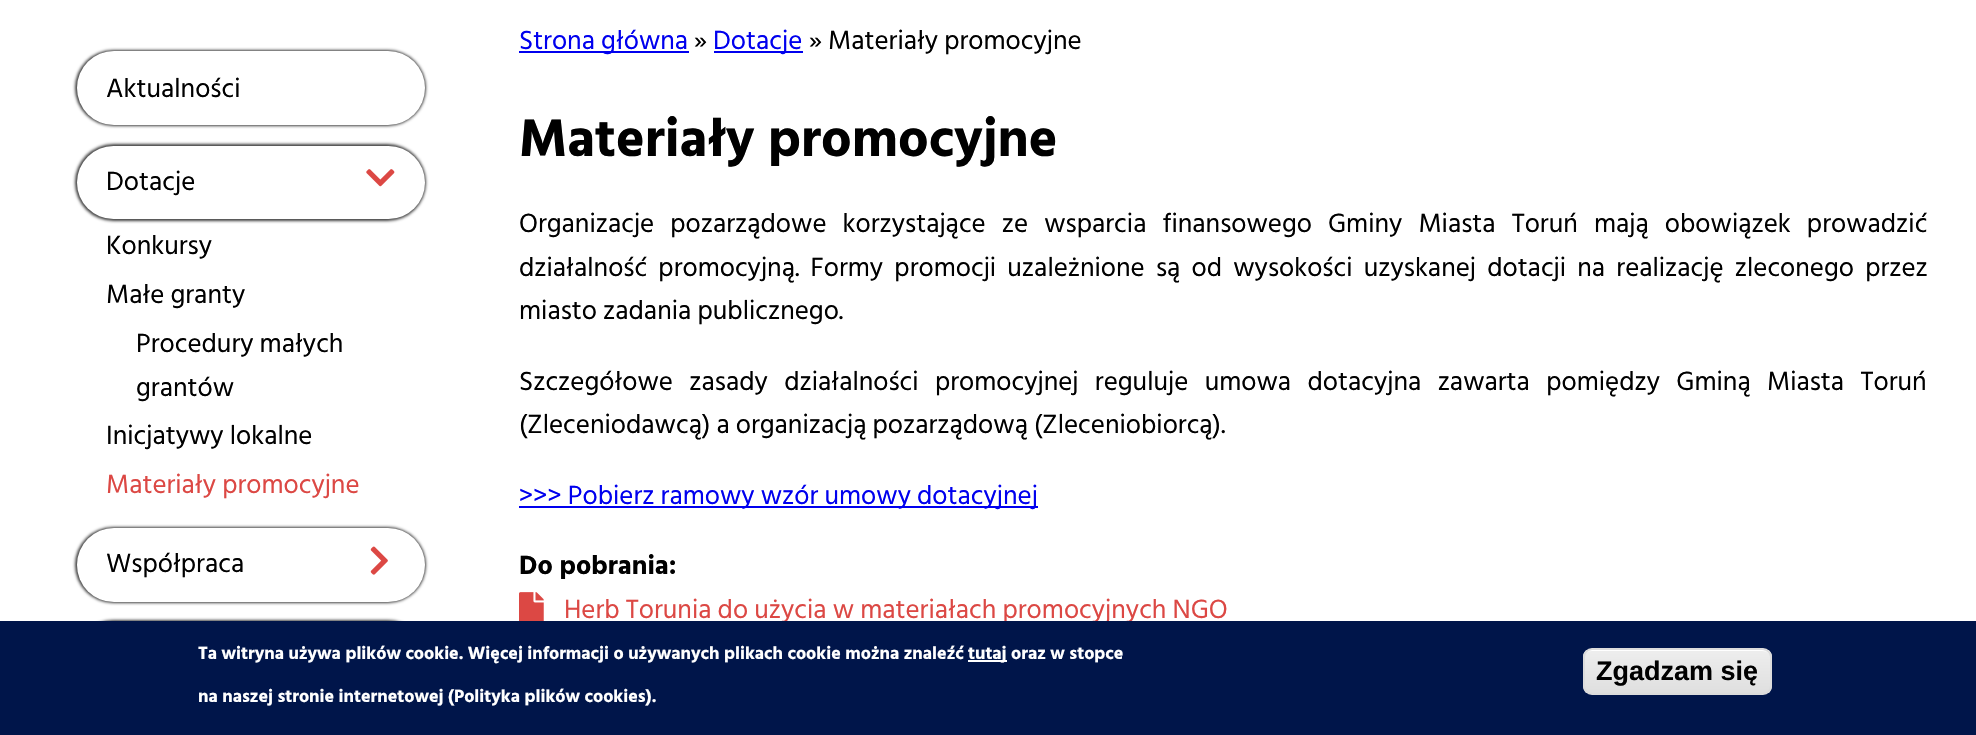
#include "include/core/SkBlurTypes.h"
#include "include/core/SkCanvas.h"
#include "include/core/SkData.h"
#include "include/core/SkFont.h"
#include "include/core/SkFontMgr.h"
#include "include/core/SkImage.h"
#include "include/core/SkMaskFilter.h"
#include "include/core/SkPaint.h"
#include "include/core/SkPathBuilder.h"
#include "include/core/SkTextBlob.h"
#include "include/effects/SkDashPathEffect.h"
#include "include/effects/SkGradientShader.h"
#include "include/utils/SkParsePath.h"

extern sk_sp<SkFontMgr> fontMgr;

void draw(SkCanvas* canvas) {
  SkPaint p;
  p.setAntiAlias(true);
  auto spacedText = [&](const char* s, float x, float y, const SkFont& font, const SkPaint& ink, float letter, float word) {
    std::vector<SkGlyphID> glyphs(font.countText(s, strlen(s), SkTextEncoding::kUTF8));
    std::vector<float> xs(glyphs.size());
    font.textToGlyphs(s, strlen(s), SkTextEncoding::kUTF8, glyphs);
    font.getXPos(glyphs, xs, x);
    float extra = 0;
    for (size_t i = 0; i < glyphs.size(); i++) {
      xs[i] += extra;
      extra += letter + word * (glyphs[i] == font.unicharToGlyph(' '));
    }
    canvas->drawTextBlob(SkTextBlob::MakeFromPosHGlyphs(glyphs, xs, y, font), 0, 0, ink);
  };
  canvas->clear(SK_ColorWHITE);
  p.setColor(SkColorSetARGB(191, 0, 0, 0));
  p.setMaskFilter(SkMaskFilter::MakeBlur(kNormal_SkBlurStyle, 1.5f));
  canvas->drawRoundRect(SkRect::MakeLTRB(75, 50, 426, 126), 38, 38, p);
  p.setMaskFilter(nullptr);
  p.setColor(SK_ColorWHITE);
  canvas->drawRoundRect(SkRect::MakeLTRB(77, 51, 425, 125), 37, 37, p);
  p.setColor(SkColorSetARGB(191, 0, 0, 0));
  p.setMaskFilter(SkMaskFilter::MakeBlur(kNormal_SkBlurStyle, 1.5f));
  canvas->drawRoundRect(SkRect::MakeLTRB(75, 144, 426, 221), 38.5f, 38.5f, p);
  p.setMaskFilter(nullptr);
  p.setColor(SK_ColorWHITE);
  canvas->drawRoundRect(SkRect::MakeLTRB(77, 146, 425, 219), 36.5f, 36.5f, p);
  canvas->drawImageRect(SkImages::DeferredFromEncodedData(SkData::MakeFromFileName("images/1.png")), SkRect::MakeLTRB(366, 169, 395, 187), SkSamplingOptions());
  p.setColor(SkColorSetARGB(191, 0, 0, 0));
  p.setMaskFilter(SkMaskFilter::MakeBlur(kNormal_SkBlurStyle, 1.5f));
  canvas->drawRoundRect(SkRect::MakeLTRB(75, 527, 426, 603), 38, 38, p);
  p.setMaskFilter(nullptr);
  p.setColor(SK_ColorWHITE);
  canvas->drawRoundRect(SkRect::MakeLTRB(77, 528, 425, 602), 37, 37, p);
  canvas->drawImageRect(SkImages::DeferredFromEncodedData(SkData::MakeFromFileName("images/2.png")), SkRect::MakeLTRB(370, 546, 388, 575), SkSamplingOptions());
  p.setColor(SkColorSetARGB(191, 0, 0, 0));
  p.setMaskFilter(SkMaskFilter::MakeBlur(kNormal_SkBlurStyle, 1.5f));
  canvas->drawRoundRect(SkRect::MakeLTRB(75, 620, 426, 696), 38, 38, p);
  p.setMaskFilter(nullptr);
  p.setColor(SkColorSetRGB(0, 0, 238));
  canvas->drawRect(SkRect::MakeLTRB(519, 51, 689, 53), p);
  canvas->drawRect(SkRect::MakeLTRB(714, 51, 803, 53), p);
  canvas->drawRect(SkRect::MakeLTRB(519, 506, 1038, 508), p);
  canvas->drawImageRect(SkImages::DeferredFromEncodedData(SkData::MakeFromFileName("images/3.png")), SkRect::MakeLTRB(519, 592, 544, 621), SkSamplingOptions());
  SkFont font1(fontMgr->matchFamilyStyle("Hind Siliguri", SkFontStyle::Normal()), 27);
  font1.setSubpixel(true);
  p.setColor(SK_ColorBLACK);
  canvas->drawString("Aktualności", 106, 97, font1, p);
  canvas->drawString("Dotacje", 106, 190, font1, p);
  canvas->drawString("Konkursy", 106, 254, font1, p);
  canvas->drawString("Małe granty", 106, 303, font1, p);
  canvas->drawString("Procedury małych", 136, 352, font1, p);
  canvas->drawString("grantów", 136, 396, font1, p);
  canvas->drawString("Inicjatywy lokalne", 106, 444, font1, p);
  p.setColor(SkColorSetRGB(220, 72, 68));
  canvas->drawString("Materiały promocyjne", 106, 493, font1, p);
  p.setColor(SK_ColorBLACK);
  canvas->drawString("Współpraca", 106, 572, font1, p);
  p.setColor(SkColorSetRGB(0, 0, 238));
  canvas->drawString("Strona główna", 519, 49, font1, p);
  p.setColor(SK_ColorBLACK);
  canvas->drawString("»", 694, 49, font1, p);
  p.setColor(SkColorSetRGB(0, 0, 238));
  canvas->drawString("Dotacje", 713, 49, font1, p);
  p.setColor(SK_ColorBLACK);
  canvas->drawString("» Materiały promocyjne", 809, 49, font1, p);
  SkFont font2(fontMgr->matchFamilyStyle("Hind Siliguri", SkFontStyle::Bold()), 54);
  font2.setSubpixel(true);
  canvas->drawString("Materiały promocyjne", 519, 156, font2, p);
  spacedText("Organizacje pozarządowe korzystające ze wsparcia finansowego Gminy Miasta Toruń mają obowiązek prowadzić", 519, 232, font1, p, 0, 10);
  spacedText("działalność promocyjną. Formy promocji uzależnione są od wysokości uzyskanej dotacji na realizację zleconego przez", 519, 276, font1, p, 0, 5.1f);
  canvas->drawString("miasto zadania publicznego.", 519, 319, font1, p);
  spacedText("Szczegółowe zasady działalności promocyjnej reguluje umowa dotacyjna zawarta pomiędzy Gminą Miasta Toruń", 519, 390, font1, p, 0, 10.25f);
  canvas->drawString("(Zleceniodawcą) a organizacją pozarządową (Zleceniobiorcą).", 519, 433, font1, p);
  p.setColor(SkColorSetRGB(0, 0, 238));
  canvas->drawString(">>> Pobierz ramowy wzór umowy dotacyjnej", 519, 504, font1, p);
  SkFont font3(fontMgr->matchFamilyStyle("Hind Siliguri", SkFontStyle::Bold()), 27);
  font3.setSubpixel(true);
  p.setColor(SK_ColorBLACK);
  canvas->drawString("Do pobrania:", 519, 574, font3, p);
  p.setColor(SkColorSetRGB(220, 72, 68));
  canvas->drawString("Herb Torunia do użycia w materiałach promocyjnych NGO", 564, 618, font1, p);
  p.setColor(SkColorSetRGB(0, 21, 74));
  canvas->drawRect(SkRect::MakeLTRB(0, 621, 1976, 735), p);
  SkFont font4(fontMgr->matchFamilyStyle("Hind Siliguri", SkFontStyle::Bold()), 18);
  font4.setSubpixel(true);
  p.setColor(SK_ColorWHITE);
  canvas->drawString("Ta witryna używa plików cookie. Więcej informacji o używanych plikach cookie można znaleźć", 198, 659, font4, p);
  canvas->drawRect(SkRect::MakeLTRB(968, 660, 1007, 662), p);
  canvas->drawString("tutaj oraz w stopce", 968, 659, font4, p);
  canvas->drawString("na naszej stronie internetowej (Polityka plików cookies).", 198, 702, font4, p);
  canvas->save();
  canvas->clipPath(SkPathBuilder().moveTo(1592, 648).lineTo(1763, 648).cubicTo(1768, 648, 1772, 652, 1772, 657).lineTo(1772, 686).cubicTo(1772, 691, 1768, 695, 1763, 695).lineTo(1592, 695).cubicTo(1587, 695, 1583, 691, 1583, 686).lineTo(1583, 657).cubicTo(1583, 652, 1587, 648, 1592, 648).close().detach(), true);
  {
    const SkColor colors[] = {SkColorSetRGB(237, 237, 237), SkColorSetRGB(223, 223, 223)};
    const float stops[] = {0.05f, 1};
    const SkPoint ends[] = {{1677, 650}, {1677, 693}};
    p.setShader(SkGradientShader::MakeLinear(ends, colors, stops, 2, SkTileMode::kClamp));
    p.setAlpha(255);
  }
  canvas->drawRect(SkRect::MakeLTRB(1583, 650, 1772, 693), p);
  canvas->restore();
  p.setShader(nullptr);
  p.setColor(SK_ColorWHITE);
  canvas->drawPath(SkPathBuilder().moveTo(1592, 651).lineTo(1762, 651).cubicTo(1767, 651, 1770, 654, 1770, 658).cubicTo(1770, 654, 1766, 650, 1762, 650).lineTo(1592, 650).cubicTo(1588, 650, 1584, 654, 1584, 658).cubicTo(1584, 654, 1587, 651, 1592, 651).close().detach(), p);
  p.setStyle(SkPaint::kStroke_Style);
  p.setStrokeWidth(2);
  p.setColor(SkColorSetRGB(220, 220, 220));
  canvas->drawRoundRect(SkRect::MakeLTRB(1584, 649, 1771, 694), 8, 8, p);
  SkFont font5(fontMgr->matchFamilyStyle("Liberation Sans", SkFontStyle::Bold()), 27);
  font5.setSubpixel(true);
  p.setStyle(SkPaint::kFill_Style);
  p.setColor(SK_ColorBLACK);
  canvas->drawString("Zgadzam się", 1596, 680, font5, p);
}
